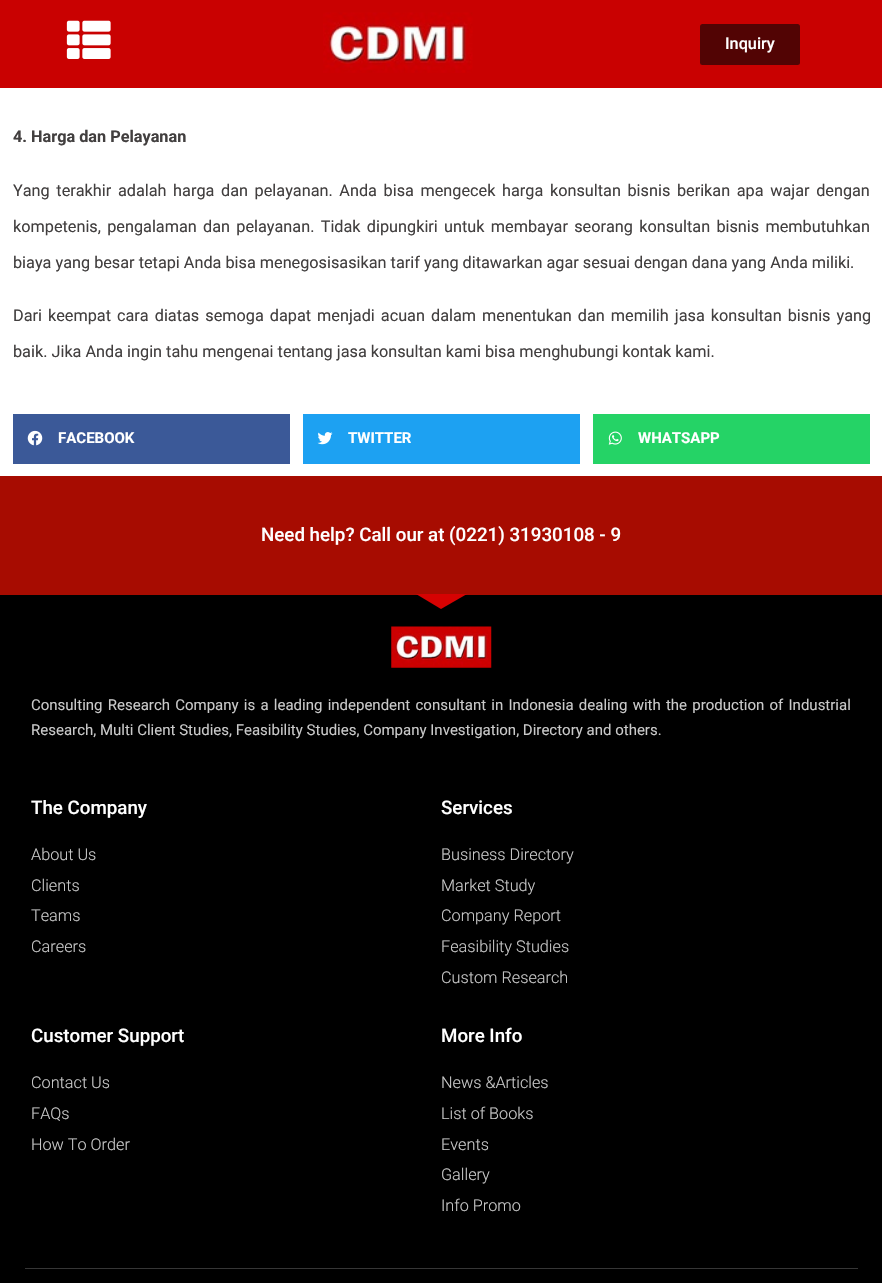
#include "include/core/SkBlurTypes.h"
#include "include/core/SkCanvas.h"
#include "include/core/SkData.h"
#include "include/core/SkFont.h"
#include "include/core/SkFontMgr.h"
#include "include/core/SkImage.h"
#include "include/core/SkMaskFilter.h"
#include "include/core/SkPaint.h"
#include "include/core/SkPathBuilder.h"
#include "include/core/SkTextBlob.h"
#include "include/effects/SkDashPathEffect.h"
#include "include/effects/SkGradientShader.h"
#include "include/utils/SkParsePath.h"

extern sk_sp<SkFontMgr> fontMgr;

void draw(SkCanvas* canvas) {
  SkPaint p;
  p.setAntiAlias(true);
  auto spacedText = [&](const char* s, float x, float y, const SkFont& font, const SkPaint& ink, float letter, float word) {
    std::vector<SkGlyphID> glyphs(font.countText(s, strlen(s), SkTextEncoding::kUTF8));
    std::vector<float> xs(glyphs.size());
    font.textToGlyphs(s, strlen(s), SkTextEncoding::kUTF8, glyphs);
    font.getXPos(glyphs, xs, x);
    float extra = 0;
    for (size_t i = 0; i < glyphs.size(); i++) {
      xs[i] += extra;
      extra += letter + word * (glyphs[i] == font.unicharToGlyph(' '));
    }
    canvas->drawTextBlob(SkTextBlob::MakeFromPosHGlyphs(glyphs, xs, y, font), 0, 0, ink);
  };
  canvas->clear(SK_ColorWHITE);
  p.setColor(SkColorSetRGB(201, 1, 1));
  canvas->drawRect(SkRect::MakeLTRB(0, 0, 882, 88), p);
  canvas->drawImageRect(SkImages::DeferredFromEncodedData(SkData::MakeFromFileName("images/1.png")), SkRect::MakeLTRB(66, 20, 111, 59), SkSamplingOptions());
  canvas->drawImageRect(SkImages::DeferredFromEncodedData(SkData::MakeFromFileName("images/2.png")), SkRect::MakeLTRB(323, 12, 473, 73), SkSamplingOptions());
  p.setColor(SkColorSetRGB(82, 4, 4));
  canvas->drawRoundRect(SkRect::MakeLTRB(700, 24, 800, 65), 2.5f, 2.5f, p);
  p.setColor(SkColorSetRGB(59, 89, 152));
  canvas->drawRect(SkRect::MakeLTRB(13, 414, 290, 464), p);
  canvas->drawImageRect(SkImages::DeferredFromEncodedData(SkData::MakeFromFileName("images/3.png")), SkRect::MakeLTRB(27, 430, 43, 446), SkSamplingOptions());
  p.setColor(SkColorSetRGB(29, 161, 242));
  canvas->drawRect(SkRect::MakeLTRB(303, 414, 580, 464), p);
  canvas->drawImageRect(SkImages::DeferredFromEncodedData(SkData::MakeFromFileName("images/4.png")), SkRect::MakeLTRB(317, 432, 333, 445), SkSamplingOptions());
  p.setColor(SkColorSetRGB(37, 211, 102));
  canvas->drawRect(SkRect::MakeLTRB(593, 414, 870, 464), p);
  canvas->drawImageRect(SkImages::DeferredFromEncodedData(SkData::MakeFromFileName("images/5.png")), SkRect::MakeLTRB(608, 431, 622, 445), SkSamplingOptions());
  p.setColor(SkColorSetRGB(167, 12, 1));
  canvas->drawRect(SkRect::MakeLTRB(0, 476, 882, 595), p);
  p.setColor(SK_ColorBLACK);
  canvas->drawRect(SkRect::MakeLTRB(0, 595, 882, 1283), p);
  p.setColor(SkColorSetRGB(214, 2, 2));
  canvas->drawPath(SkPathBuilder().moveTo(441, 609).lineTo(416, 594).lineTo(467, 594).close().detach(), p);
  canvas->drawImageRect(SkImages::DeferredFromEncodedData(SkData::MakeFromFileName("images/6.png")), SkRect::MakeLTRB(391, 626, 492, 668), SkSamplingOptions());
  p.setColor(SkColorSetRGB(54, 54, 54));
  canvas->drawRect(SkRect::MakeLTRB(25, 1268, 858, 1269), p);
  SkFont font1(fontMgr->matchFamilyStyle("Roboto", SkFontStyle(500, SkFontStyle::kNormal_Width, SkFontStyle::kUpright_Slant)), 16.25f);
  font1.setSubpixel(true);
  p.setColor(SK_ColorWHITE);
  canvas->drawString("Inquiry", 725, 49, font1, p);
  SkFont font2(fontMgr->matchFamilyStyle("Roboto", SkFontStyle::Bold()), 16.25f);
  font2.setSubpixel(true);
  p.setColor(SkColorSetRGB(66, 63, 63));
  canvas->drawString("4. Harga dan Pelayanan", 13, 142, font2, p);
  SkFont font3(fontMgr->matchFamilyStyle("Roboto", SkFontStyle::Normal()), 16.25f);
  font3.setSubpixel(true);
  spacedText("Yang terakhir adalah harga dan pelayanan. Anda bisa mengecek harga konsultan bisnis berikan apa wajar dengan", 13, 196, font3, p, 0, 2.6f);
  spacedText("kompetenis, pengalaman dan pelayanan. Tidak dipungkiri untuk membayar seorang konsultan bisnis membutuhkan", 13, 232, font3, p, 0, 2.25f);
  canvas->drawString("biaya yang besar tetapi Anda bisa menegosisasikan tarif yang ditawarkan agar sesuai dengan dana yang Anda miliki.", 13, 268, font3, p);
  spacedText("Dari keempat cara diatas semoga dapat menjadi acuan dalam menentukan dan memilih jasa konsultan bisnis yang", 13, 321, font3, p, 0, 2);
  canvas->drawString("baik. Jika Anda ingin tahu mengenai tentang jasa konsultan kami bisa menghubungi kontak kami.", 13, 357, font3, p);
  SkFont font4(fontMgr->matchFamilyStyle("Roboto", SkFontStyle::Bold()), 15);
  font4.setSubpixel(true);
  p.setColor(SK_ColorWHITE);
  canvas->drawString("FACEBOOK", 58, 443, font4, p);
  canvas->drawString("TWITTER", 348, 443, font4, p);
  canvas->drawString("WHATSAPP", 638, 443, font4, p);
  SkFont font5(fontMgr->matchFamilyStyle("Roboto", SkFontStyle(500, SkFontStyle::kNormal_Width, SkFontStyle::kUpright_Slant)), 18.75f);
  font5.setSubpixel(true);
  canvas->drawString("Need help? Call our at (0221) 31930108 - 9", 261, 541, font5, p);
  SkFont font6(fontMgr->matchFamilyStyle("Roboto", SkFontStyle::Normal()), 15);
  font6.setSubpixel(true);
  p.setColor(SkColorSetRGB(201, 201, 201));
  spacedText("Consulting Research Company is a leading independent consultant in Indonesia dealing with the production of Industrial", 31, 710, font6, p, 0, 1.5f);
  canvas->drawString("Research, Multi Client Studies, Feasibility Studies, Company Investigation, Directory and others.", 31, 735, font6, p);
  p.setColor(SK_ColorWHITE);
  canvas->drawString("The Company", 31, 814, font5, p);
  SkFont font7(fontMgr->matchFamilyStyle("Roboto", SkFontStyle(300, SkFontStyle::kNormal_Width, SkFontStyle::kUpright_Slant)), 16.25f);
  font7.setSubpixel(true);
  p.setColor(SkColorSetRGB(201, 201, 201));
  canvas->drawString("About Us", 31, 860, font7, p);
  canvas->drawString("Clients", 31, 891, font7, p);
  canvas->drawString("Teams", 31, 921, font7, p);
  canvas->drawString("Careers", 31, 952, font7, p);
  p.setColor(SK_ColorWHITE);
  canvas->drawString("Services", 441, 814, font5, p);
  p.setColor(SkColorSetRGB(201, 201, 201));
  canvas->drawString("Business Directory", 441, 860, font7, p);
  canvas->drawString("Market Study", 441, 891, font7, p);
  canvas->drawString("Company Report", 441, 921, font7, p);
  canvas->drawString("Feasibility Studies", 441, 952, font7, p);
  canvas->drawString("Custom Research", 441, 983, font7, p);
  p.setColor(SK_ColorWHITE);
  canvas->drawString("Customer Support", 31, 1042, font5, p);
  p.setColor(SkColorSetRGB(201, 201, 201));
  canvas->drawString("Contact Us", 31, 1088, font7, p);
  canvas->drawString("FAQs", 31, 1119, font7, p);
  canvas->drawString("How To Order", 31, 1150, font7, p);
  p.setColor(SK_ColorWHITE);
  canvas->drawString("More Info", 441, 1042, font5, p);
  p.setColor(SkColorSetRGB(201, 201, 201));
  canvas->drawString("News &Articles", 441, 1088, font7, p);
  canvas->drawString("List of Books", 441, 1119, font7, p);
  canvas->drawString("Events", 441, 1150, font7, p);
  canvas->drawString("Gallery", 441, 1180, font7, p);
  canvas->drawString("Info Promo", 441, 1211, font7, p);
}
